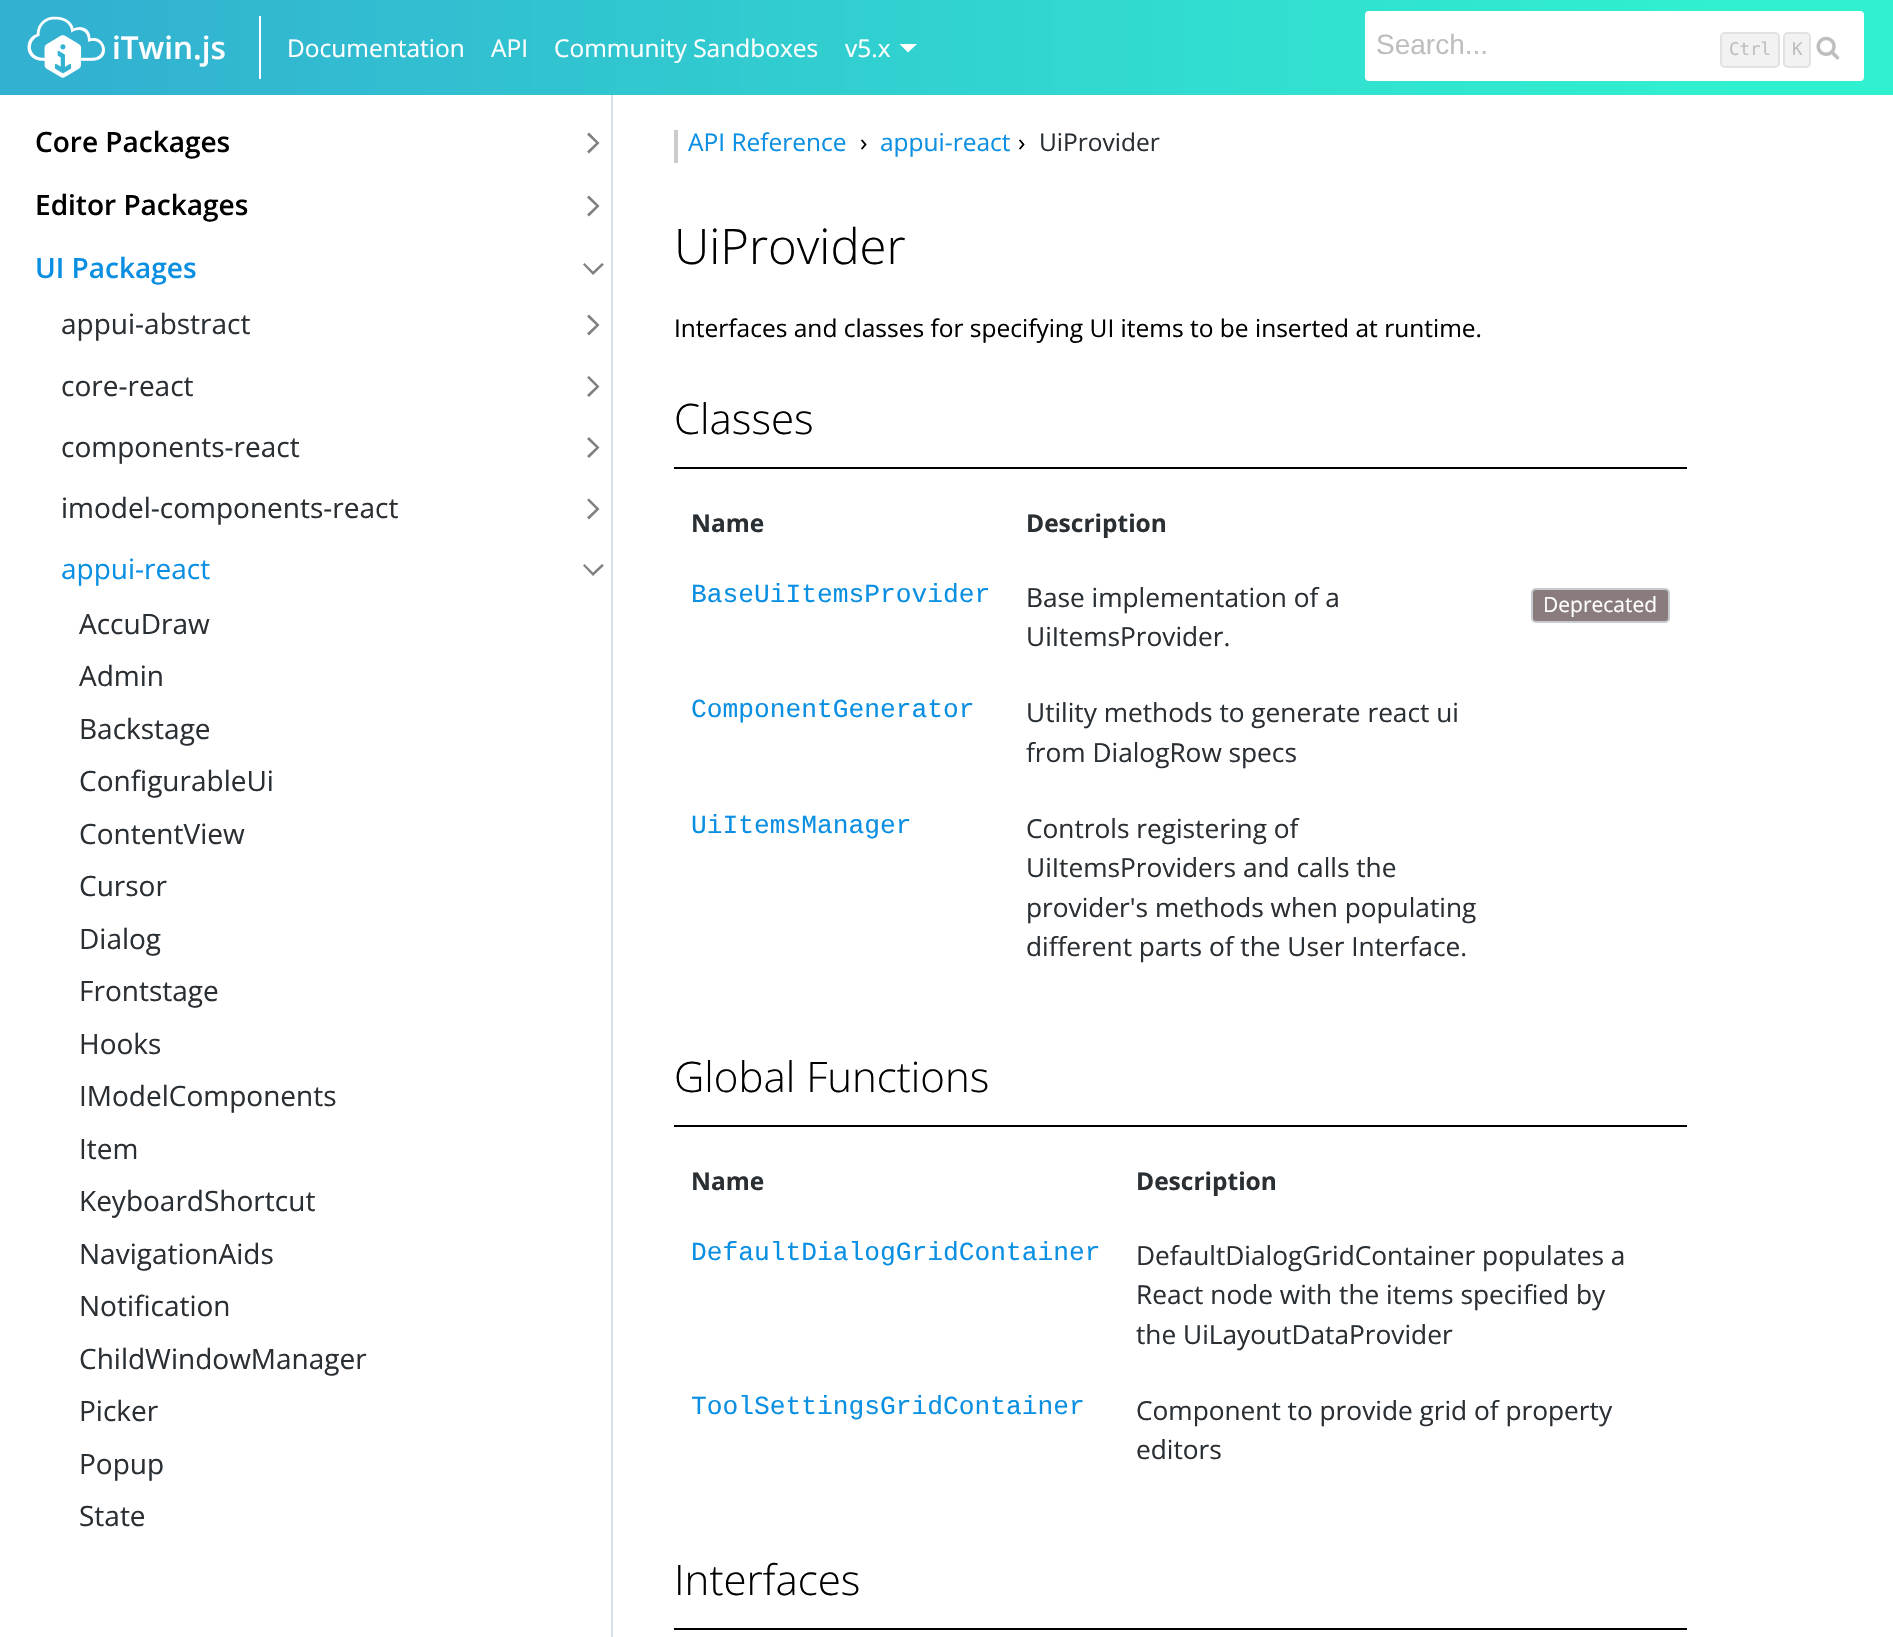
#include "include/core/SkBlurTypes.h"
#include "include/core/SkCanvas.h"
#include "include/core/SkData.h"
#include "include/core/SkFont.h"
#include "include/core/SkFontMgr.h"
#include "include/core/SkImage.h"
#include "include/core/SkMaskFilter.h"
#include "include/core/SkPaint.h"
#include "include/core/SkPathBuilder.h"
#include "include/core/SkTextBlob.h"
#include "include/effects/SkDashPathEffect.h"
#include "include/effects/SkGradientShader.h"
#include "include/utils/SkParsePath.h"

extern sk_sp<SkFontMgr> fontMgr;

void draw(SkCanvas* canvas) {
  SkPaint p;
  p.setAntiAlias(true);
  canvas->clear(SK_ColorWHITE);
  {
    const SkColor colors[] = {SkColorSetRGB(50, 177, 209), SkColorSetRGB(48, 241, 207)};
    const float stops[] = {0.04f, 0.92f};
    const SkPoint ends[] = {{0, 47}, {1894, 47}};
    p.setShader(SkGradientShader::MakeLinear(ends, colors, stops, 2, SkTileMode::kClamp));
    p.setAlpha(255);
  }
  canvas->drawRect(SkRect::MakeLTRB(0, 0, 1893, 95), p);
  canvas->drawImageRect(SkImages::DeferredFromEncodedData(SkData::MakeFromFileName("images/1.png")), SkRect::MakeLTRB(27, 16, 105, 78), SkSamplingOptions());
  p.setShader(nullptr);
  p.setColor(SK_ColorWHITE);
  canvas->drawRect(SkRect::MakeLTRB(259, 16, 261, 79), p);
  canvas->drawPath(SkPathBuilder().moveTo(899.5f, 44).lineTo(917, 44).lineTo(908, 52.5f).close().detach(), p);
  canvas->drawRoundRect(SkRect::MakeLTRB(1365, 11, 1864, 81), 4, 4, p);
  p.setColor(SkColorSetRGB(242, 242, 242));
  canvas->drawRoundRect(SkRect::MakeLTRB(1720, 32, 1780, 68), 5, 5, p);
  p.setStyle(SkPaint::kStroke_Style);
  p.setStrokeWidth(2);
  p.setColor(SkColorSetARGB(77, 190, 190, 190));
  canvas->drawRoundRect(SkRect::MakeLTRB(1721, 33, 1779, 67), 4, 4, p);
  p.setStyle(SkPaint::kFill_Style);
  p.setColor(SkColorSetRGB(242, 242, 242));
  canvas->drawRoundRect(SkRect::MakeLTRB(1783, 32, 1811, 68), 5, 5, p);
  p.setStyle(SkPaint::kStroke_Style);
  p.setColor(SkColorSetARGB(77, 190, 190, 190));
  canvas->drawRoundRect(SkRect::MakeLTRB(1784, 33, 1810, 67), 4, 4, p);
  canvas->drawImageRect(SkImages::DeferredFromEncodedData(SkData::MakeFromFileName("images/2.png")), SkRect::MakeLTRB(1816, 36, 1840, 60), SkSamplingOptions());
  p.setStyle(SkPaint::kFill_Style);
  p.setColor(SkColorSetRGB(211, 225, 236));
  canvas->drawRect(SkRect::MakeLTRB(611, 95, 613, 1637), p);
  p.setColor(SkColorSetRGB(128, 128, 128));
  canvas->drawPath(SkPathBuilder().moveTo(589, 132.5f).lineTo(587, 134.5f).lineTo(596, 143).lineTo(587, 151.5f).lineTo(589, 153.5f).lineTo(599.5f, 143).close().detach(), p);
  canvas->drawPath(SkPathBuilder().moveTo(589, 195.5f).lineTo(587, 197.5f).lineTo(596, 206).lineTo(587, 214.5f).lineTo(589, 216.5f).lineTo(599.5f, 206).close().detach(), p);
  canvas->drawPath(SkPathBuilder().moveTo(604, 264.5f).lineTo(602, 263).lineTo(593, 271.5f).lineTo(584.5f, 263).lineTo(583, 264.5f).lineTo(593, 275).close().detach(), p);
  canvas->drawPath(SkPathBuilder().moveTo(589, 314.5f).lineTo(587, 316.5f).lineTo(596, 325).lineTo(587, 333.5f).lineTo(589, 335.5f).lineTo(599.5f, 325).close().detach(), p);
  canvas->drawPath(SkPathBuilder().moveTo(589, 376).lineTo(587, 377.5f).lineTo(596, 386.5f).lineTo(587, 395).lineTo(589, 397).lineTo(599.5f, 386.5f).close().detach(), p);
  canvas->drawPath(SkPathBuilder().moveTo(589, 437).lineTo(587, 439).lineTo(596, 447.5f).lineTo(587, 456).lineTo(589, 458).lineTo(599.5f, 447.5f).close().detach(), p);
  canvas->drawPath(SkPathBuilder().moveTo(589, 498.5f).lineTo(587, 500).lineTo(596, 509).lineTo(587, 517.5f).lineTo(589, 519.5f).lineTo(599.5f, 509).close().detach(), p);
  canvas->drawPath(SkPathBuilder().moveTo(604, 565.5f).lineTo(602, 564).lineTo(593, 572.5f).lineTo(584.5f, 564).lineTo(583, 565.5f).lineTo(593, 576).close().detach(), p);
  p.setColor(SkColorSetRGB(204, 204, 204));
  canvas->drawRect(SkRect::MakeLTRB(674, 130, 678, 163), p);
  p.setColor(SK_ColorBLACK);
  canvas->drawRect(SkRect::MakeLTRB(674, 467, 1687, 469), p);
  p.setColor(SkColorSetRGB(138, 124, 124));
  canvas->drawRoundRect(SkRect::MakeLTRB(1532, 589, 1669, 622), 4, 4, p);
  p.setStyle(SkPaint::kStroke_Style);
  p.setColor(SkColorSetRGB(199, 204, 209));
  canvas->drawRoundRect(SkRect::MakeLTRB(1532, 589, 1669, 622), 4, 4, p);
  p.setStyle(SkPaint::kFill_Style);
  p.setColor(SK_ColorBLACK);
  canvas->drawRect(SkRect::MakeLTRB(674, 1125, 1687, 1127), p);
  canvas->drawRect(SkRect::MakeLTRB(674, 1628, 1687, 1630), p);
  SkFont font1(fontMgr->matchFamilyStyle("Open Sans", SkFontStyle(600, SkFontStyle::kNormal_Width, SkFontStyle::kUpright_Slant)), 31.5f);
  font1.setSubpixel(true);
  p.setColor(SK_ColorWHITE);
  canvas->drawString("iTwin.js", 112, 59, font1, p);
  SkFont font2(fontMgr->matchFamilyStyle("Open Sans", SkFontStyle::Normal()), 24.5f);
  font2.setSubpixel(true);
  canvas->drawString("Documentation", 287, 57, font2, p);
  canvas->drawString("API", 491, 57, font2, p);
  canvas->drawString("Community Sandboxes", 554, 57, font2, p);
  canvas->drawString("v5.x", 845, 57, font2, p);
  SkFont font3(fontMgr->matchFamilyStyle("Liberation Sans", SkFontStyle::Normal()), 28);
  font3.setSubpixel(true);
  p.setColor(SkColorSetRGB(190, 190, 190));
  canvas->drawString("Search...", 1376, 54, font3, p);
  SkFont font4(fontMgr->matchFamilyStyle("DejaVu Sans Mono", SkFontStyle::Normal()), 17.5f);
  font4.setSubpixel(true);
  canvas->drawString("Ctrl", 1729, 55, font4, p);
  canvas->drawString("K", 1792, 55, font4, p);
  SkFont font5(fontMgr->matchFamilyStyle("Open Sans", SkFontStyle(600, SkFontStyle::kNormal_Width, SkFontStyle::kUpright_Slant)), 28);
  font5.setSubpixel(true);
  p.setColor(SK_ColorBLACK);
  canvas->drawString("Core Packages", 35, 152, font5, p);
  canvas->drawString("Editor Packages", 35, 215, font5, p);
  p.setColor(SkColorSetRGB(10, 143, 226));
  canvas->drawString("UI Packages", 35, 278, font5, p);
  SkFont font6(fontMgr->matchFamilyStyle("Open Sans", SkFontStyle::Normal()), 28);
  font6.setSubpixel(true);
  p.setColor(SkColorSetRGB(42, 47, 52));
  canvas->drawString("appui-abstract", 61, 334, font6, p);
  canvas->drawString("core-react", 61, 396, font6, p);
  canvas->drawString("components-react", 61, 457, font6, p);
  canvas->drawString("imodel-components-react", 61, 518, font6, p);
  p.setColor(SkColorSetRGB(10, 143, 226));
  canvas->drawString("appui-react", 61, 579, font6, p);
  p.setColor(SkColorSetRGB(42, 47, 52));
  canvas->drawString("AccuDraw", 79, 634, font6, p);
  canvas->drawString("Admin", 79, 686, font6, p);
  canvas->drawString("Backstage", 79, 739, font6, p);
  canvas->drawString("ConfigurableUi", 79, 791, font6, p);
  canvas->drawString("ContentView", 79, 844, font6, p);
  canvas->drawString("Cursor", 79, 896, font6, p);
  canvas->drawString("Dialog", 79, 949, font6, p);
  canvas->drawString("Frontstage", 79, 1001, font6, p);
  canvas->drawString("Hooks", 79, 1054, font6, p);
  canvas->drawString("IModelComponents", 79, 1106, font6, p);
  canvas->drawString("Item", 79, 1159, font6, p);
  canvas->drawString("KeyboardShortcut", 79, 1211, font6, p);
  canvas->drawString("NavigationAids", 79, 1264, font6, p);
  canvas->drawString("Notification", 79, 1316, font6, p);
  canvas->drawString("ChildWindowManager", 79, 1369, font6, p);
  canvas->drawString("Picker", 79, 1421, font6, p);
  canvas->drawString("Popup", 79, 1474, font6, p);
  canvas->drawString("State", 79, 1526, font6, p);
  p.setColor(SkColorSetRGB(10, 143, 226));
  canvas->drawString("API Reference", 688, 151, font2, p);
  p.setColor(SK_ColorBLACK);
  canvas->drawString("›", 860, 151, font2, p);
  p.setColor(SkColorSetRGB(10, 143, 226));
  canvas->drawString("appui-react", 880, 151, font2, p);
  p.setColor(SK_ColorBLACK);
  canvas->drawString("›", 1018, 151, font2, p);
  p.setColor(SkColorSetRGB(42, 47, 52));
  canvas->drawString("UiProvider", 1039, 151, font2, p);
  SkFont font7(fontMgr->matchFamilyStyle("Open Sans", SkFontStyle(300, SkFontStyle::kNormal_Width, SkFontStyle::kUpright_Slant)), 49);
  font7.setSubpixel(true);
  p.setColor(SK_ColorBLACK);
  canvas->drawString("UiProvider", 674, 264, font7, p);
  canvas->drawString("Interfaces and classes for specifying UI items to be inserted at runtime.", 674, 337, font2, p);
  SkFont font8(fontMgr->matchFamilyStyle("Open Sans", SkFontStyle(300, SkFontStyle::kNormal_Width, SkFontStyle::kUpright_Slant)), 42);
  font8.setSubpixel(true);
  canvas->drawString("Classes", 674, 434, font8, p);
  SkFont font9(fontMgr->matchFamilyStyle("Open Sans", SkFontStyle::Bold()), 24.5f);
  font9.setSubpixel(true);
  p.setColor(SkColorSetRGB(42, 47, 52));
  canvas->drawString("Name", 691, 532, font9, p);
  canvas->drawString("Description", 1026, 532, font9, p);
  SkFont font10(fontMgr->matchFamilyStyle("Liberation Mono", SkFontStyle::Normal()), 26.25f);
  font10.setSubpixel(true);
  p.setColor(SkColorSetRGB(10, 143, 226));
  canvas->drawString("BaseUiItemsProvider", 691, 602, font10, p);
  SkFont font11(fontMgr->matchFamilyStyle("Open Sans", SkFontStyle::Normal()), 26.25f);
  font11.setSubpixel(true);
  p.setColor(SkColorSetRGB(42, 47, 52));
  canvas->drawString("Base implementation of a", 1026, 607, font11, p);
  canvas->drawString("UiItemsProvider.", 1026, 646, font11, p);
  SkFont font12(fontMgr->matchFamilyStyle("Open Sans", SkFontStyle::Normal()), 21);
  font12.setSubpixel(true);
  p.setColor(SK_ColorWHITE);
  canvas->drawString("Deprecated", 1543, 612, font12, p);
  p.setColor(SkColorSetRGB(10, 143, 226));
  canvas->drawString("ComponentGenerator", 691, 717, font10, p);
  p.setColor(SkColorSetRGB(42, 47, 52));
  canvas->drawString("Utility methods to generate react ui", 1026, 722, font11, p);
  canvas->drawString("from DialogRow specs", 1026, 762, font11, p);
  p.setColor(SkColorSetRGB(10, 143, 226));
  canvas->drawString("UiItemsManager", 691, 833, font10, p);
  p.setColor(SkColorSetRGB(42, 47, 52));
  canvas->drawString("Controls registering of", 1026, 838, font11, p);
  canvas->drawString("UiItemsProviders and calls the", 1026, 877, font11, p);
  canvas->drawString("provider's methods when populating", 1026, 917, font11, p);
  canvas->drawString("different parts of the User Interface.", 1026, 956, font11, p);
  p.setColor(SK_ColorBLACK);
  canvas->drawString("Global Functions", 674, 1092, font8, p);
  p.setColor(SkColorSetRGB(42, 47, 52));
  canvas->drawString("Name", 691, 1190, font9, p);
  canvas->drawString("Description", 1136, 1190, font9, p);
  p.setColor(SkColorSetRGB(10, 143, 226));
  canvas->drawString("DefaultDialogGridContainer", 691, 1260, font10, p);
  p.setColor(SkColorSetRGB(42, 47, 52));
  canvas->drawString("DefaultDialogGridContainer populates a", 1136, 1265, font11, p);
  canvas->drawString("React node with the items specified by", 1136, 1304, font11, p);
  canvas->drawString("the UiLayoutDataProvider", 1136, 1344, font11, p);
  p.setColor(SkColorSetRGB(10, 143, 226));
  canvas->drawString("ToolSettingsGridContainer", 691, 1414, font10, p);
  p.setColor(SkColorSetRGB(42, 47, 52));
  canvas->drawString("Component to provide grid of property", 1136, 1420, font11, p);
  canvas->drawString("editors", 1136, 1459, font11, p);
  p.setColor(SK_ColorBLACK);
  canvas->drawString("Interfaces", 674, 1595, font8, p);
}
